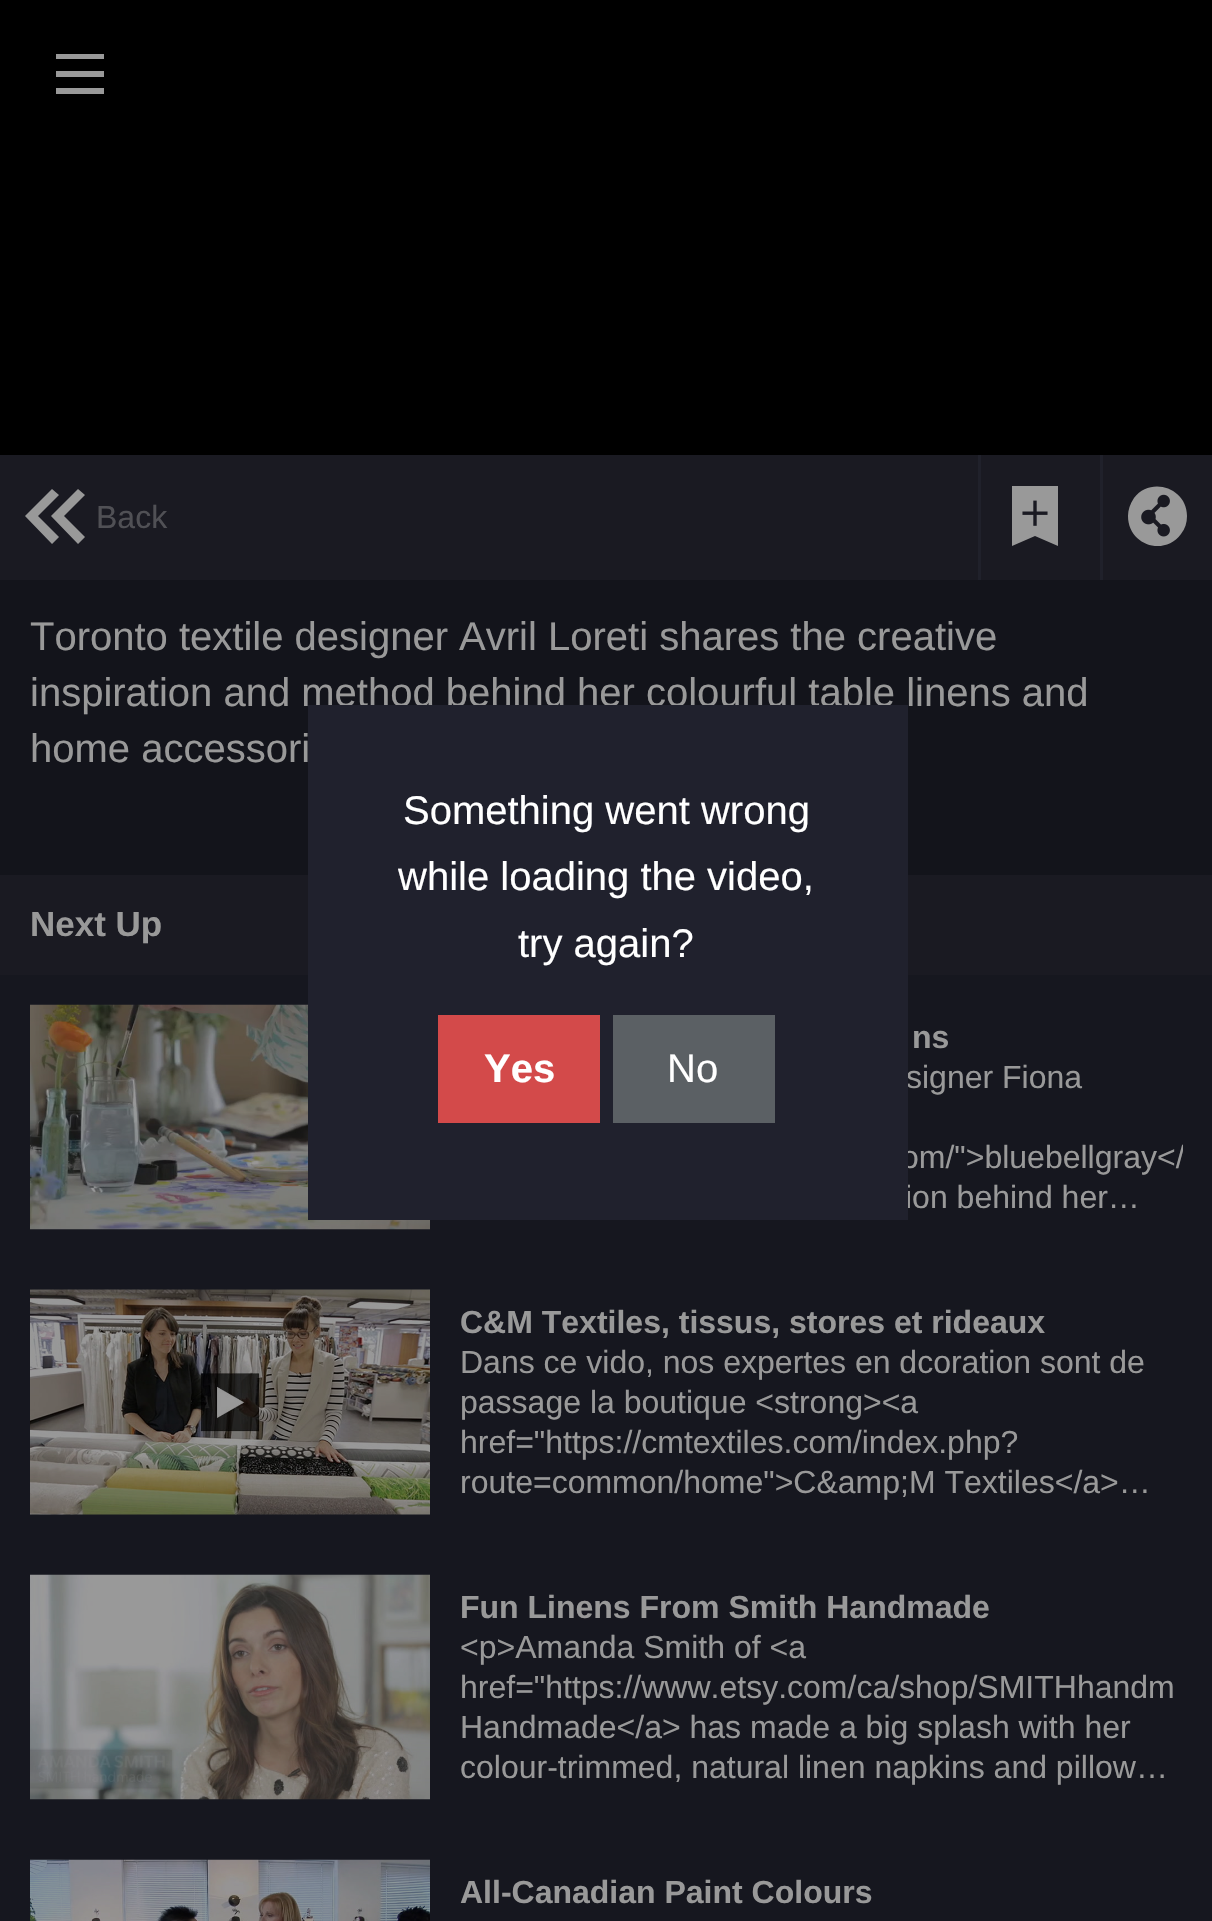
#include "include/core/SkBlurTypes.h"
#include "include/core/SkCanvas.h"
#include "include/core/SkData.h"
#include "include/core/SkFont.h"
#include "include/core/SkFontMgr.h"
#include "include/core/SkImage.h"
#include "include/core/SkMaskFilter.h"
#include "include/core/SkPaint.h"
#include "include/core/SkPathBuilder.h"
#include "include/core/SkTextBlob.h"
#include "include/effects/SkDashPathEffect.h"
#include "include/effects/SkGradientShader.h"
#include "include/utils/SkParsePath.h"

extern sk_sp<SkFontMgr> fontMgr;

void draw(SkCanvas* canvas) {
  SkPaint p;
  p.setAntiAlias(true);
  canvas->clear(SkColorSetRGB(19, 20, 27));
  p.setColor(SK_ColorBLACK);
  canvas->drawRect(SkRect::MakeLTRB(0, 0, 1212, 455), p);
  p.setColor(SkColorSetRGB(153, 153, 153));
  canvas->drawPath(SkPathBuilder().moveTo(56, 54).lineTo(104, 54).lineTo(104, 59).lineTo(56, 59).close().moveTo(56, 71).lineTo(104, 71).lineTo(104, 77).lineTo(56, 77).close().moveTo(56, 88).lineTo(104, 88).lineTo(104, 94).lineTo(56, 94).close().detach(), p);
  p.setColor(SkColorSetRGB(26, 26, 34));
  canvas->drawRect(SkRect::MakeLTRB(0, 455, 1212, 580), p);
  p.setColor(SkColorSetRGB(153, 153, 153));
  canvas->drawPath(SkPathBuilder().moveTo(78, 489).lineTo(85, 495).lineTo(64, 516).lineTo(85, 537).lineTo(78, 544).lineTo(51, 516).close().moveTo(52, 489).lineTo(59, 495).lineTo(38, 516).lineTo(59, 537).lineTo(52, 544).lineTo(25, 516).close().detach(), p);
  p.setColor(SkColorSetRGB(32, 33, 43));
  canvas->drawRect(SkRect::MakeLTRB(978, 455, 981, 580), p);
  p.setColor(SkColorSetRGB(153, 153, 153));
  canvas->drawPath(SkPathBuilder().moveTo(1058, 486).lineTo(1012, 486).lineTo(1012, 546).lineTo(1035, 536).lineTo(1058, 546).close().detach(), p);
  canvas->drawImageRect(SkImages::DeferredFromEncodedData(SkData::MakeFromFileName("images/1.png")), SkRect::MakeLTRB(1022, 500, 1048, 526), SkSamplingOptions());
  p.setColor(SkColorSetRGB(32, 33, 43));
  canvas->drawRect(SkRect::MakeLTRB(1100, 455, 1103, 580), p);
  p.setColor(SkColorSetRGB(153, 153, 153));
  canvas->drawPath(SkPathBuilder().moveTo(1187, 516).cubicTo(1187, 523, 1185, 529, 1181, 534).cubicTo(1164, 557, 1128, 545, 1128, 516).cubicTo(1128, 510, 1130, 504, 1134, 498).cubicTo(1151, 476, 1187, 488, 1187, 516).close().detach(), p);
  canvas->drawImageRect(SkImages::DeferredFromEncodedData(SkData::MakeFromFileName("images/2.png")), SkRect::MakeLTRB(1141, 494, 1170, 537), SkSamplingOptions());
  p.setColor(SkColorSetRGB(22, 23, 31));
  canvas->drawRect(SkRect::MakeLTRB(0, 975, 1212, 1921), p);
  p.setColor(SkColorSetRGB(26, 26, 34));
  canvas->drawRect(SkRect::MakeLTRB(0, 875, 1212, 975), p);
  canvas->drawImageRect(SkImages::DeferredFromEncodedData(SkData::MakeFromFileName("images/3.png")), SkRect::MakeLTRB(30, 1004, 430, 1230), SkSamplingOptions());
  canvas->drawImageRect(SkImages::DeferredFromEncodedData(SkData::MakeFromFileName("images/4.png")), SkRect::MakeLTRB(30, 1289, 430, 1515), SkSamplingOptions());
  canvas->drawImageRect(SkImages::DeferredFromEncodedData(SkData::MakeFromFileName("images/5.png")), SkRect::MakeLTRB(30, 1574, 430, 1800), SkSamplingOptions());
  canvas->drawImageRect(SkImages::DeferredFromEncodedData(SkData::MakeFromFileName("images/6.png")), SkRect::MakeLTRB(30, 1859, 430, 1921), SkSamplingOptions());
  SkFont font1(fontMgr->matchFamilyStyle("Liberation Sans", SkFontStyle::Normal()), 32);
  font1.setSubpixel(true);
  p.setColor(SkColorSetRGB(80, 80, 85));
  canvas->drawString("Back", 96, 528, font1, p);
  SkFont font2(fontMgr->matchFamilyStyle("Liberation Sans", SkFontStyle::Normal()), 40);
  font2.setSubpixel(true);
  p.setColor(SkColorSetRGB(153, 153, 153));
  canvas->drawString("Toronto textile designer Avril Loreti shares the creative", 30, 650, font2, p);
  canvas->drawString("inspiration and method behind her colourful table linens and", 30, 706, font2, p);
  canvas->drawString("home accessori", 30, 762, font2, p);
  SkFont font3(fontMgr->matchFamilyStyle("Liberation Sans", SkFontStyle::Bold()), 35);
  font3.setSubpixel(true);
  canvas->drawString("Next Up", 30, 936, font3, p);
  SkFont font4(fontMgr->matchFamilyStyle("Liberation Sans", SkFontStyle::Bold()), 32);
  font4.setSubpixel(true);
  canvas->drawString("ns", 912, 1048, font4, p);
  canvas->drawString("signer Fiona", 906, 1088, font1, p);
  canvas->save();
  canvas->clipRect(SkRect::MakeLTRB(460, 1018, 1183, 1218));
  canvas->drawString("om/\">bluebellgray</", 901, 1168, font1, p);
  canvas->restore();
  canvas->drawString("ion behind her…", 905, 1208, font1, p);
  canvas->drawString("C&M Textiles, tissus, stores et rideaux", 460, 1333, font4, p);
  canvas->drawString("Dans ce vido, nos expertes en dcoration sont de", 460, 1373, font1, p);
  canvas->drawString("passage la boutique <strong><a", 460, 1413, font1, p);
  canvas->drawString("href=\"https://cmtextiles.com/index.php?", 460, 1453, font1, p);
  canvas->drawString("route=common/home\">C&amp;M Textiles</a>…", 460, 1493, font1, p);
  canvas->drawString("Fun Linens From Smith Handmade", 460, 1618, font4, p);
  canvas->drawString("<p>Amanda Smith of <a", 460, 1658, font1, p);
  canvas->drawString("href=\"https://www.etsy.com/ca/shop/SMITHhandm", 460, 1698, font1, p);
  canvas->drawString("Handmade</a> has made a big splash with her", 460, 1738, font1, p);
  canvas->drawString("colour-trimmed, natural linen napkins and pillow…", 460, 1778, font1, p);
  canvas->drawString("All-Canadian Paint Colours", 460, 1903, font4, p);
  p.setColor(SkColorSetRGB(32, 33, 45));
  canvas->drawRect(SkRect::MakeLTRB(308, 705, 908, 1220), p);
  p.setColor(SK_ColorWHITE);
  canvas->drawString("Something went wrong", 403, 824, font2, p);
  canvas->drawString("while loading the video,", 398, 890, font2, p);
  canvas->drawString("try again?", 518, 957, font2, p);
  p.setColor(SkColorSetRGB(211, 74, 74));
  canvas->drawRect(SkRect::MakeLTRB(438, 1015, 600, 1123), p);
  SkFont font5(fontMgr->matchFamilyStyle("Liberation Sans", SkFontStyle::Bold()), 40);
  font5.setSubpixel(true);
  p.setColor(SK_ColorWHITE);
  canvas->drawString("Yes", 484, 1082, font5, p);
  p.setColor(SkColorSetRGB(91, 96, 100));
  canvas->drawRect(SkRect::MakeLTRB(613, 1015, 775, 1123), p);
  p.setColor(SK_ColorWHITE);
  canvas->drawString("No", 667, 1082, font2, p);
}
